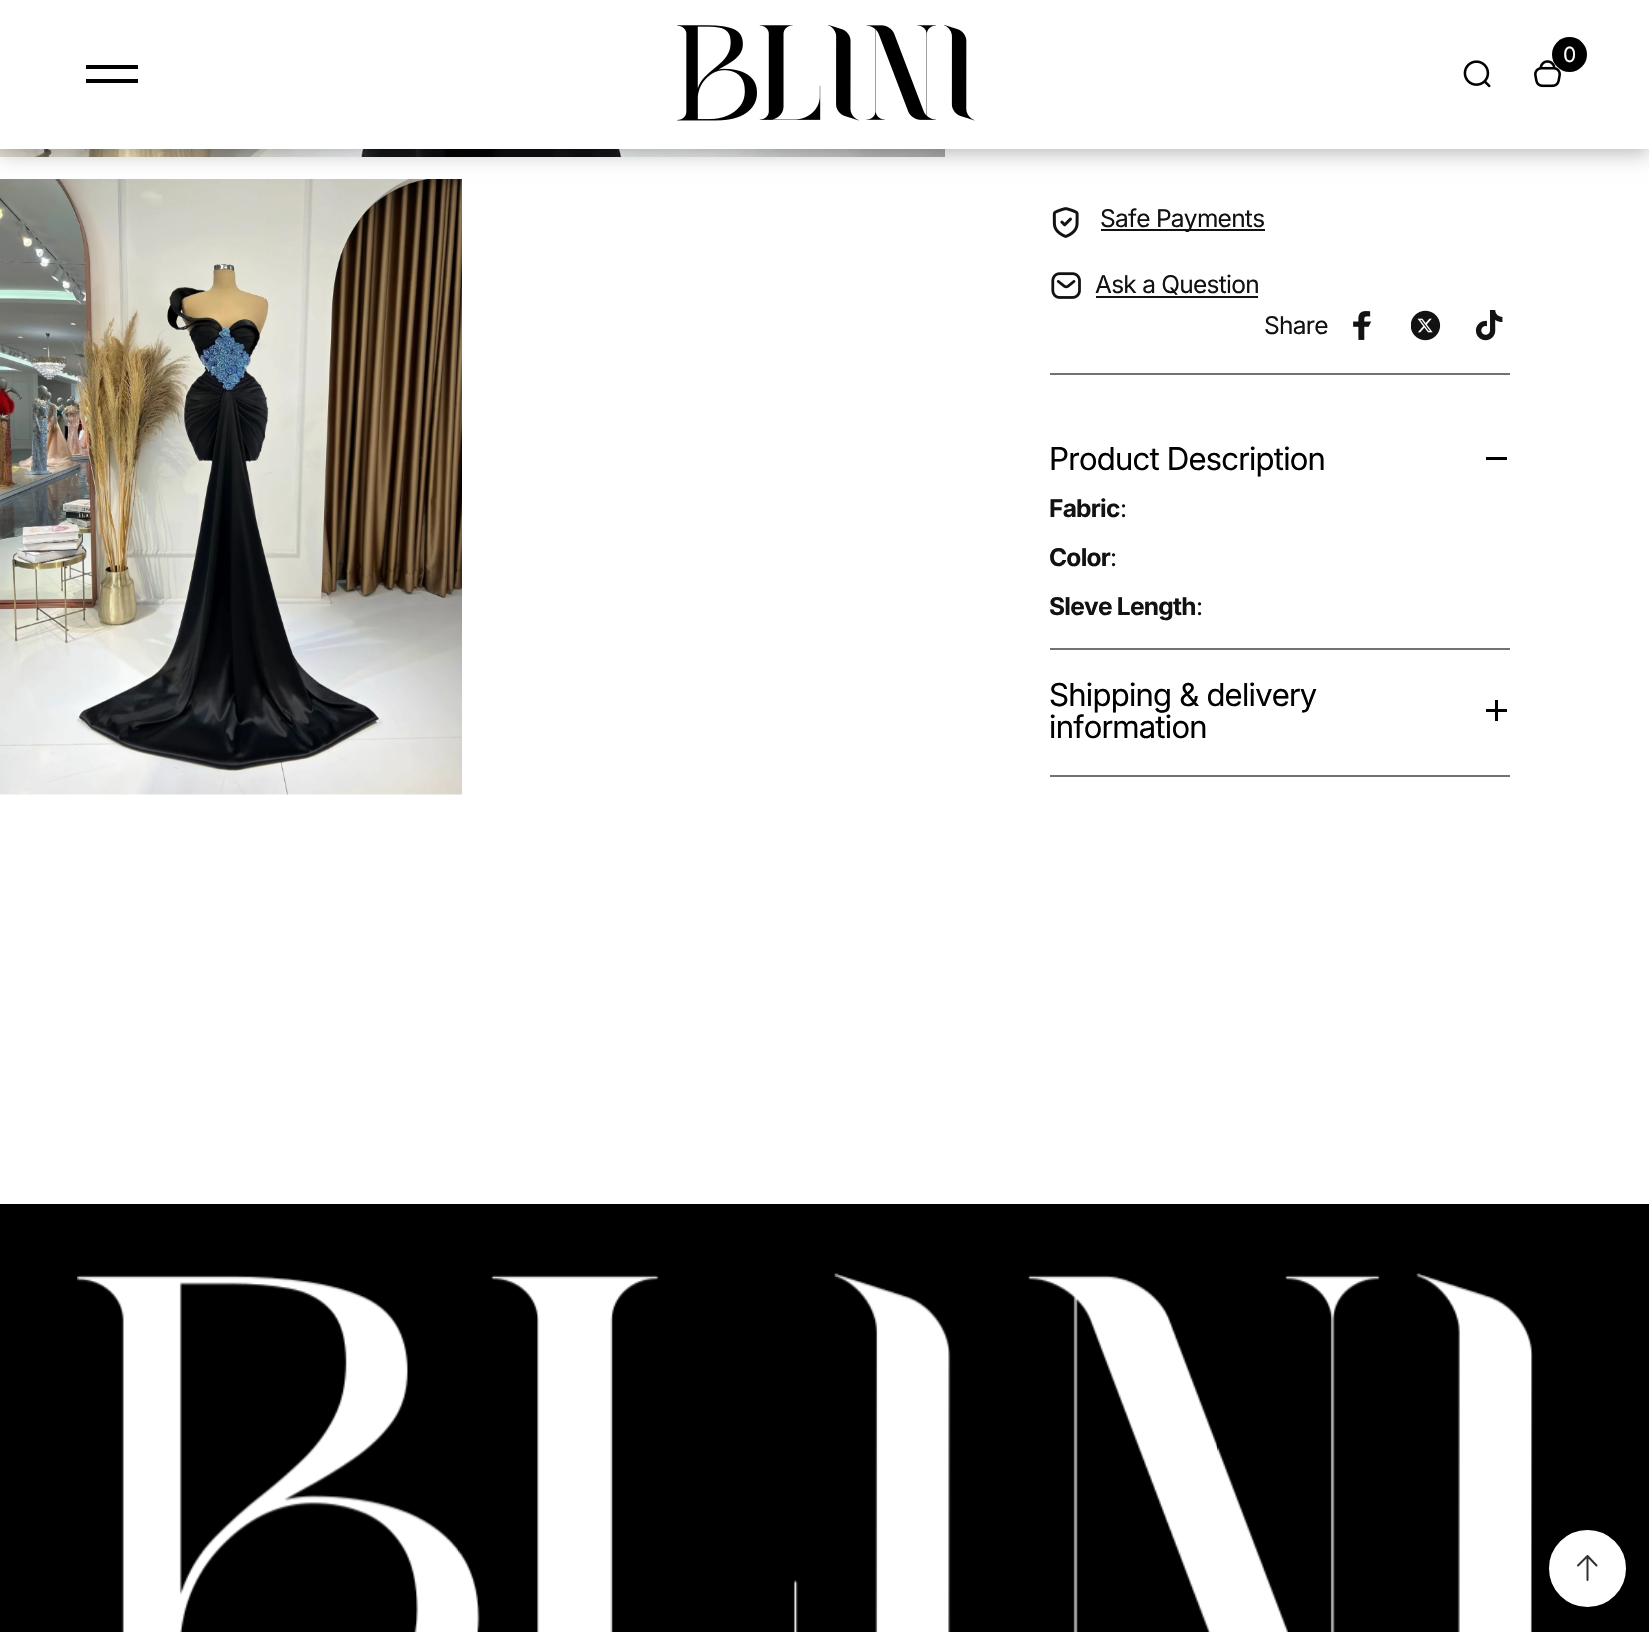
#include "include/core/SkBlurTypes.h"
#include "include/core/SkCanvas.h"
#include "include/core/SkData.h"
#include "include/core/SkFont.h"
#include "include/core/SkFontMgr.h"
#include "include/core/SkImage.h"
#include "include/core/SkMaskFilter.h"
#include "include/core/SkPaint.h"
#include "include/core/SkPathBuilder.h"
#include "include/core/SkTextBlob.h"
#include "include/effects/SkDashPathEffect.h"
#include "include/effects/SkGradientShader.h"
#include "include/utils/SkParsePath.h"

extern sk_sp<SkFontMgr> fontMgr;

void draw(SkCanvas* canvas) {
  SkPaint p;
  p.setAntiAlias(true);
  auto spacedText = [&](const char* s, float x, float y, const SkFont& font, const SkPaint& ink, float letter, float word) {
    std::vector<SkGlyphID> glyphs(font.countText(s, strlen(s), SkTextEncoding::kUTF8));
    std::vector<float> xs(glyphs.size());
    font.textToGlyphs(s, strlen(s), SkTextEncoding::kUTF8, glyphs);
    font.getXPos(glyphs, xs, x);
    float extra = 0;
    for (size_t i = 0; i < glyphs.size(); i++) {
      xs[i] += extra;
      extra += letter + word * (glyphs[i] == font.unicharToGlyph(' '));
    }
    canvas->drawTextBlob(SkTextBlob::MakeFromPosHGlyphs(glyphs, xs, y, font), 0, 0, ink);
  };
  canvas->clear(SK_ColorWHITE);
  canvas->drawImageRect(SkImages::DeferredFromEncodedData(SkData::MakeFromFileName("images/4.png")), SkRect::MakeLTRB(0, 149, 945, 157), SkSamplingOptions());
  canvas->drawImageRect(SkImages::DeferredFromEncodedData(SkData::MakeFromFileName("images/5.png")), SkRect::MakeLTRB(0, 179, 462, 795), SkSamplingOptions());
  p.setColor(SkColorSetARGB(77, 0, 0, 0));
  p.setMaskFilter(SkMaskFilter::MakeBlur(kNormal_SkBlurStyle, 10.5f));
  canvas->drawRect(SkRect::MakeLTRB(0, 4, 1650, 152), p);
  p.setMaskFilter(nullptr);
  p.setColor(SK_ColorWHITE);
  canvas->drawRect(SkRect::MakeLTRB(0, 0, 1649, 149), p);
  canvas->drawImageRect(SkImages::DeferredFromEncodedData(SkData::MakeFromFileName("images/1.png")), SkRect::MakeLTRB(677, 25, 975, 121), SkSamplingOptions());
  canvas->drawImageRect(SkImages::DeferredFromEncodedData(SkData::MakeFromFileName("images/2.png")), SkRect::MakeLTRB(1534, 60, 1561, 88), SkSamplingOptions());
  p.setColor(SK_ColorBLACK);
  canvas->drawCircle(1569.5f, 54.5f, 17.5f, p);
  canvas->drawImageRect(SkImages::DeferredFromEncodedData(SkData::MakeFromFileName("images/3.png")), SkRect::MakeLTRB(1463, 60, 1491, 88), SkSamplingOptions());
  canvas->drawRect(SkRect::MakeLTRB(86, 65, 138, 69), p);
  canvas->drawRect(SkRect::MakeLTRB(86, 79, 138, 83), p);
  canvas->drawImageRect(SkImages::DeferredFromEncodedData(SkData::MakeFromFileName("images/6.png")), SkRect::MakeLTRB(1052, 207, 1079, 238), SkSamplingOptions());
  p.setColor(SkColorSetRGB(18, 18, 18));
  canvas->drawRect(SkRect::MakeLTRB(1101, 229, 1265, 231), p);
  p.setColor(SkColorSetRGB(118, 112, 112));
  canvas->drawRect(SkRect::MakeLTRB(1050, 373, 1510, 375), p);
  canvas->drawImageRect(SkImages::DeferredFromEncodedData(SkData::MakeFromFileName("images/7.png")), SkRect::MakeLTRB(1051, 272, 1081, 299), SkSamplingOptions());
  p.setColor(SkColorSetRGB(18, 18, 18));
  canvas->drawRect(SkRect::MakeLTRB(1096, 296, 1258, 298), p);
  canvas->drawImageRect(SkImages::DeferredFromEncodedData(SkData::MakeFromFileName("images/8.png")), SkRect::MakeLTRB(1353, 311, 1372, 340), SkSamplingOptions());
  canvas->drawImageRect(SkImages::DeferredFromEncodedData(SkData::MakeFromFileName("images/9.png")), SkRect::MakeLTRB(1411, 310, 1441, 341), SkSamplingOptions());
  canvas->drawImageRect(SkImages::DeferredFromEncodedData(SkData::MakeFromFileName("images/10.png")), SkRect::MakeLTRB(1475, 310, 1503, 341), SkSamplingOptions());
  p.setColor(SkColorSetRGB(118, 112, 112));
  canvas->drawRect(SkRect::MakeLTRB(1050, 648, 1510, 650), p);
  p.setColor(SK_ColorBLACK);
  canvas->drawRect(SkRect::MakeLTRB(1486, 457, 1507, 460), p);
  p.setColor(SkColorSetRGB(118, 112, 112));
  canvas->drawRect(SkRect::MakeLTRB(1050, 775, 1510, 777), p);
  p.setColor(SK_ColorBLACK);
  canvas->drawRect(SkRect::MakeLTRB(1486, 709, 1507, 712), p);
  canvas->drawRect(SkRect::MakeLTRB(1495, 700, 1498, 721), p);
  canvas->drawRect(SkRect::MakeLTRB(0, 1204, 1649, 1632), p);
  canvas->drawImageRect(SkImages::DeferredFromEncodedData(SkData::MakeFromFileName("images/11.png")), SkRect::MakeLTRB(77, 1273, 1533, 1632), SkSamplingOptions());
  p.setColor(SK_ColorWHITE);
  canvas->drawCircle(1587.5f, 1568.5f, 37.5f, p);
  p.setStyle(SkPaint::kStroke_Style);
  p.setStrokeWidth(2);
  canvas->drawCircle(1587.5f, 1568.5f, 37.5f, p);
  p.setStrokeCap(SkPaint::kRound_Cap);
  p.setStrokeJoin(SkPaint::kRound_Join);
  p.setColor(SkColorSetRGB(49, 49, 49));
  canvas->drawPath(SkPathBuilder().moveTo(1587.5f, 1580).lineTo(1587.5f, 1556).moveTo(1587.5f, 1556).lineTo(1578, 1565.5f).moveTo(1587.5f, 1556).lineTo(1596.5f, 1565.5f).detach(), p);
  SkFont font1(fontMgr->matchFamilyStyle("Inter", SkFontStyle::Normal()), 21);
  font1.setSubpixel(true);
  p.setStyle(SkPaint::kFill_Style);
  p.setColor(SK_ColorWHITE);
  spacedText("0", 1563, 62, font1, p, -0.75f, 0);
  SkFont font2(fontMgr->matchFamilyStyle("Inter", SkFontStyle::Normal()), 24.5f);
  font2.setSubpixel(true);
  p.setColor(SkColorSetRGB(18, 18, 18));
  spacedText("Safe Payments", 1100, 227, font2, p, -0.75f, 0);
  spacedText("Ask a Question", 1095, 293, font2, p, -0.75f, 0);
  spacedText("Share", 1264, 334, font2, p, -0.75f, 0);
  SkFont font3(fontMgr->matchFamilyStyle("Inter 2", SkFontStyle::Normal()), 31.5f);
  font3.setSubpixel(true);
  p.setColor(SK_ColorBLACK);
  spacedText("Product Description", 1049, 470, font3, p, -0.75f, 0);
  SkFont font4(fontMgr->matchFamilyStyle("Inter", SkFontStyle::Bold()), 24.5f);
  font4.setSubpixel(true);
  p.setColor(SkColorSetRGB(18, 18, 18));
  spacedText("Fabric", 1049, 517, font4, p, -0.75f, 0);
  spacedText(":", 1120, 517, font2, p, -0.75f, 0);
  spacedText("Color", 1049, 566, font4, p, -0.75f, 0);
  spacedText(":", 1110, 566, font2, p, -0.75f, 0);
  spacedText("Sleve Length", 1049, 615, font4, p, -0.75f, 0);
  spacedText(":", 1196, 615, font2, p, -0.75f, 0);
  p.setColor(SK_ColorBLACK);
  spacedText("Shipping & delivery", 1049, 706, font3, p, -0.75f, 0);
  spacedText("information", 1049, 738, font3, p, -0.75f, 0);
}
